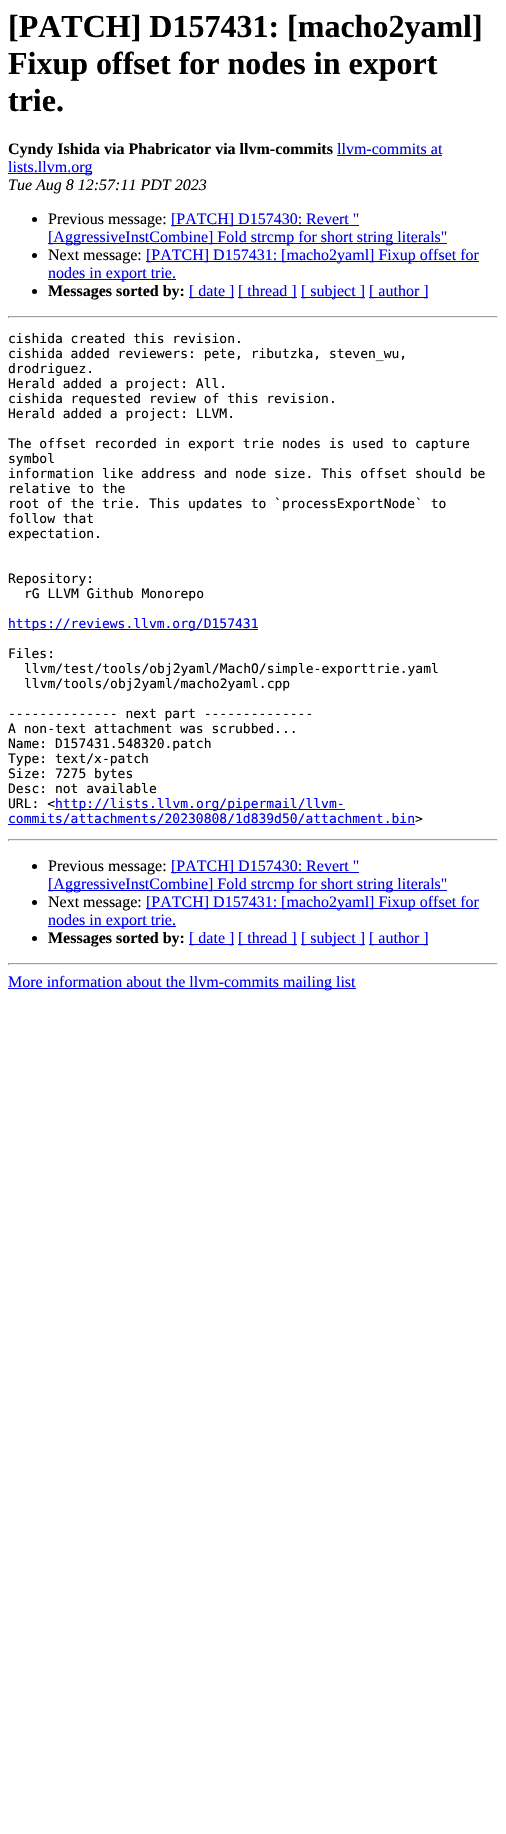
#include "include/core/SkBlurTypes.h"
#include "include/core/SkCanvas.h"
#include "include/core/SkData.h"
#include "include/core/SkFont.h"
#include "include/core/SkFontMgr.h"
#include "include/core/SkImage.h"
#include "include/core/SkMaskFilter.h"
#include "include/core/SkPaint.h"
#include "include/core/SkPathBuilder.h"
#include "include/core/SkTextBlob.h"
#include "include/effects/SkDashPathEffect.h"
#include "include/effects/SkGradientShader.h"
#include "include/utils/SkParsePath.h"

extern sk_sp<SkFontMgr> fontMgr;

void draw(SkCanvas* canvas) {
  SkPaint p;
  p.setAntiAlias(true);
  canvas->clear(SK_ColorWHITE);
  p.setColor(SkColorSetRGB(0, 0, 238));
  canvas->drawRect(SkRect::MakeLTRB(337, 155, 442, 156), p);
  canvas->drawRect(SkRect::MakeLTRB(8, 173, 92, 174), p);
  p.setColor(SK_ColorBLACK);
  canvas->drawCircle(34.5f, 219.5f, 2.5f, p);
  p.setColor(SkColorSetRGB(0, 0, 238));
  canvas->drawRect(SkRect::MakeLTRB(171, 225, 359, 226), p);
  canvas->drawRect(SkRect::MakeLTRB(48, 243, 447, 244), p);
  p.setColor(SK_ColorBLACK);
  canvas->drawCircle(34.5f, 255.5f, 2.5f, p);
  p.setColor(SkColorSetRGB(0, 0, 238));
  canvas->drawRect(SkRect::MakeLTRB(146, 261, 479, 262), p);
  canvas->drawRect(SkRect::MakeLTRB(48, 279, 176, 280), p);
  p.setColor(SK_ColorBLACK);
  canvas->drawCircle(34.5f, 291.5f, 2.5f, p);
  p.setColor(SkColorSetRGB(0, 0, 238));
  canvas->drawRect(SkRect::MakeLTRB(189, 297, 234, 298), p);
  canvas->drawRect(SkRect::MakeLTRB(238, 297, 297, 298), p);
  canvas->drawRect(SkRect::MakeLTRB(301, 297, 365, 298), p);
  canvas->drawRect(SkRect::MakeLTRB(369, 297, 428, 298), p);
  p.setColor(SkColorSetRGB(159, 159, 159));
  canvas->drawRect(SkRect::MakeLTRB(8, 316, 498, 317), p);
  p.setColor(SkColorSetRGB(238, 238, 238));
  canvas->drawRect(SkRect::MakeLTRB(497, 316, 498, 318), p);
  canvas->drawRect(SkRect::MakeLTRB(8, 317, 498, 318), p);
  p.setColor(SkColorSetRGB(159, 159, 159));
  canvas->drawRect(SkRect::MakeLTRB(8, 316, 9, 318), p);
  p.setColor(SkColorSetRGB(0, 0, 238));
  canvas->drawRect(SkRect::MakeLTRB(8, 629, 258, 630), p);
  canvas->drawRect(SkRect::MakeLTRB(55, 809, 345, 810), p);
  canvas->drawRect(SkRect::MakeLTRB(8, 824, 415, 825), p);
  p.setColor(SkColorSetRGB(159, 159, 159));
  canvas->drawRect(SkRect::MakeLTRB(8, 839, 498, 840), p);
  p.setColor(SkColorSetRGB(238, 238, 238));
  canvas->drawRect(SkRect::MakeLTRB(497, 839, 498, 841), p);
  canvas->drawRect(SkRect::MakeLTRB(8, 840, 498, 841), p);
  p.setColor(SkColorSetRGB(159, 159, 159));
  canvas->drawRect(SkRect::MakeLTRB(8, 839, 9, 841), p);
  p.setColor(SK_ColorBLACK);
  canvas->drawCircle(34.5f, 866.5f, 2.5f, p);
  p.setColor(SkColorSetRGB(0, 0, 238));
  canvas->drawRect(SkRect::MakeLTRB(171, 872, 359, 873), p);
  canvas->drawRect(SkRect::MakeLTRB(48, 890, 447, 891), p);
  p.setColor(SK_ColorBLACK);
  canvas->drawCircle(34.5f, 902.5f, 2.5f, p);
  p.setColor(SkColorSetRGB(0, 0, 238));
  canvas->drawRect(SkRect::MakeLTRB(146, 908, 479, 909), p);
  canvas->drawRect(SkRect::MakeLTRB(48, 926, 176, 927), p);
  p.setColor(SK_ColorBLACK);
  canvas->drawCircle(34.5f, 938.5f, 2.5f, p);
  p.setColor(SkColorSetRGB(0, 0, 238));
  canvas->drawRect(SkRect::MakeLTRB(189, 944, 234, 945), p);
  canvas->drawRect(SkRect::MakeLTRB(238, 944, 297, 945), p);
  canvas->drawRect(SkRect::MakeLTRB(301, 944, 365, 945), p);
  canvas->drawRect(SkRect::MakeLTRB(369, 944, 428, 945), p);
  p.setColor(SkColorSetRGB(159, 159, 159));
  canvas->drawRect(SkRect::MakeLTRB(8, 963, 498, 964), p);
  p.setColor(SkColorSetRGB(238, 238, 238));
  canvas->drawRect(SkRect::MakeLTRB(497, 963, 498, 965), p);
  canvas->drawRect(SkRect::MakeLTRB(8, 964, 498, 965), p);
  p.setColor(SkColorSetRGB(159, 159, 159));
  canvas->drawRect(SkRect::MakeLTRB(8, 963, 9, 965), p);
  p.setColor(SkColorSetRGB(0, 0, 238));
  canvas->drawRect(SkRect::MakeLTRB(8, 988, 356, 989), p);
  SkFont font1(fontMgr->matchFamilyStyle("Liberation Serif", SkFontStyle::Bold()), 32);
  font1.setSubpixel(true);
  p.setColor(SK_ColorBLACK);
  canvas->drawString("[PATCH] D157431: [macho2yaml]", 8, 37, font1, p);
  canvas->drawString("Fixup offset for nodes in export", 8, 74, font1, p);
  canvas->drawString("trie.", 8, 111, font1, p);
  SkFont font2(fontMgr->matchFamilyStyle("Liberation Serif", SkFontStyle::Bold()), 16);
  font2.setSubpixel(true);
  canvas->drawString("Cyndy Ishida via Phabricator via llvm-commits", 8, 154, font2, p);
  SkFont font3(fontMgr->matchFamilyStyle("Liberation Serif", SkFontStyle::Normal()), 16);
  font3.setSubpixel(true);
  p.setColor(SkColorSetRGB(0, 0, 238));
  canvas->drawString("llvm-commits at", 337, 154, font3, p);
  canvas->drawString("lists.llvm.org", 8, 172, font3, p);
  SkFont font4(fontMgr->matchFamilyStyle("Liberation Serif", SkFontStyle::Italic()), 16);
  font4.setSubpixel(true);
  p.setColor(SK_ColorBLACK);
  canvas->drawString("Tue Aug 8 12:57:11 PDT 2023", 8, 190, font4, p);
  canvas->drawString("Previous message:", 48, 224, font3, p);
  p.setColor(SkColorSetRGB(0, 0, 238));
  canvas->drawString("[PATCH] D157430: Revert \"", 171, 224, font3, p);
  canvas->drawString("[AggressiveInstCombine] Fold strcmp for short string literals\"", 48, 242, font3, p);
  p.setColor(SK_ColorBLACK);
  canvas->drawString("Next message:", 48, 260, font3, p);
  p.setColor(SkColorSetRGB(0, 0, 238));
  canvas->drawString("[PATCH] D157431: [macho2yaml] Fixup offset for", 146, 260, font3, p);
  canvas->drawString("nodes in export trie.", 48, 278, font3, p);
  p.setColor(SK_ColorBLACK);
  canvas->drawString("Messages sorted by:", 48, 296, font2, p);
  p.setColor(SkColorSetRGB(0, 0, 238));
  canvas->drawString("[ date ]", 189, 296, font3, p);
  canvas->drawString("[ thread ]", 238, 296, font3, p);
  canvas->drawString("[ subject ]", 301, 296, font3, p);
  canvas->drawString("[ author ]", 369, 296, font3, p);
  SkFont font5(fontMgr->matchFamilyStyle("DejaVu Sans Mono", SkFontStyle::Normal()), 13);
  font5.setSubpixel(true);
  p.setColor(SK_ColorBLACK);
  canvas->drawString("cishida created this revision.", 8, 343, font5, p);
  canvas->drawString("cishida added reviewers: pete, ributzka, steven_wu,", 8, 358, font5, p);
  canvas->drawString("drodriguez.", 8, 373, font5, p);
  canvas->drawString("Herald added a project: All.", 8, 388, font5, p);
  canvas->drawString("cishida requested review of this revision.", 8, 403, font5, p);
  canvas->drawString("Herald added a project: LLVM.", 8, 418, font5, p);
  canvas->drawString("The offset recorded in export trie nodes is used to capture", 8, 448, font5, p);
  canvas->drawString("symbol", 8, 463, font5, p);
  canvas->drawString("information like address and node size. This offset should be", 8, 478, font5, p);
  canvas->drawString("relative to the", 8, 493, font5, p);
  canvas->drawString("root of the trie. This updates to `processExportNode` to", 8, 508, font5, p);
  canvas->drawString("follow that", 8, 523, font5, p);
  canvas->drawString("expectation.", 8, 538, font5, p);
  canvas->drawString("Repository:", 8, 583, font5, p);
  canvas->drawString("rG LLVM Github Monorepo", 24, 598, font5, p);
  p.setColor(SkColorSetRGB(0, 0, 238));
  canvas->drawString("https://reviews.llvm.org/D157431", 8, 628, font5, p);
  p.setColor(SK_ColorBLACK);
  canvas->drawString("Files:", 8, 658, font5, p);
  canvas->drawString("llvm/test/tools/obj2yaml/MachO/simple-exporttrie.yaml", 24, 673, font5, p);
  canvas->drawString("llvm/tools/obj2yaml/macho2yaml.cpp", 24, 688, font5, p);
  canvas->drawString("-------------- next part --------------", 8, 718, font5, p);
  canvas->drawString("A non-text attachment was scrubbed...", 8, 733, font5, p);
  canvas->drawString("Name: D157431.548320.patch", 8, 748, font5, p);
  canvas->drawString("Type: text/x-patch", 8, 763, font5, p);
  canvas->drawString("Size: 7275 bytes", 8, 778, font5, p);
  canvas->drawString("Desc: not available", 8, 793, font5, p);
  canvas->drawString("URL: <", 8, 808, font5, p);
  p.setColor(SkColorSetRGB(0, 0, 238));
  canvas->drawString("http://lists.llvm.org/pipermail/llvm-", 55, 808, font5, p);
  canvas->drawString("commits/attachments/20230808/1d839d50/attachment.bin", 8, 823, font5, p);
  p.setColor(SK_ColorBLACK);
  canvas->drawString(">", 415, 823, font5, p);
  canvas->drawString("Previous message:", 48, 871, font3, p);
  p.setColor(SkColorSetRGB(0, 0, 238));
  canvas->drawString("[PATCH] D157430: Revert \"", 171, 871, font3, p);
  canvas->drawString("[AggressiveInstCombine] Fold strcmp for short string literals\"", 48, 889, font3, p);
  p.setColor(SK_ColorBLACK);
  canvas->drawString("Next message:", 48, 907, font3, p);
  p.setColor(SkColorSetRGB(0, 0, 238));
  canvas->drawString("[PATCH] D157431: [macho2yaml] Fixup offset for", 146, 907, font3, p);
  canvas->drawString("nodes in export trie.", 48, 925, font3, p);
  p.setColor(SK_ColorBLACK);
  canvas->drawString("Messages sorted by:", 48, 943, font2, p);
  p.setColor(SkColorSetRGB(0, 0, 238));
  canvas->drawString("[ date ]", 189, 943, font3, p);
  canvas->drawString("[ thread ]", 238, 943, font3, p);
  canvas->drawString("[ subject ]", 301, 943, font3, p);
  canvas->drawString("[ author ]", 369, 943, font3, p);
  canvas->drawString("More information about the llvm-commits mailing list", 8, 987, font3, p);
}
